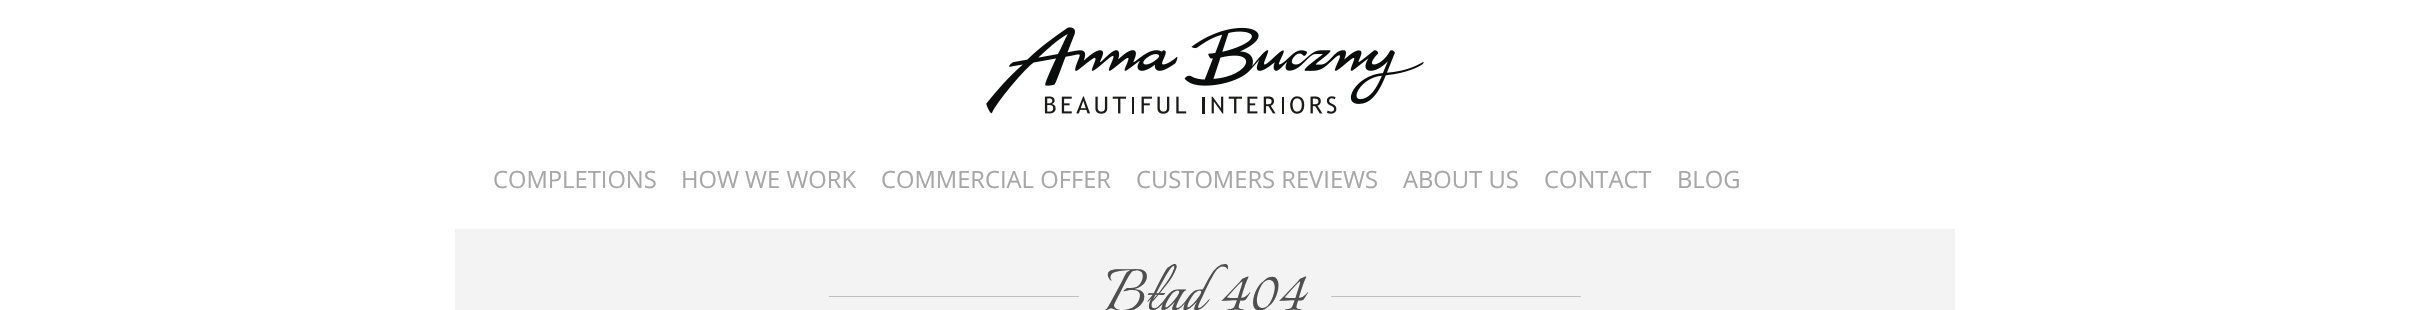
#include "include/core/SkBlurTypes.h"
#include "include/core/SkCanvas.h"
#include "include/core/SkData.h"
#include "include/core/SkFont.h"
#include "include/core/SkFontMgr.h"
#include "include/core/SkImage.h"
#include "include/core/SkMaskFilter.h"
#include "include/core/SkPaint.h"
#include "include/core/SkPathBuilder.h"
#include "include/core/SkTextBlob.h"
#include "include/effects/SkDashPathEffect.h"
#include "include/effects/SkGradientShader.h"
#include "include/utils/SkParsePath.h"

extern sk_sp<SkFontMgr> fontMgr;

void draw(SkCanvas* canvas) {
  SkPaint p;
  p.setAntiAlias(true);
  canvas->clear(SK_ColorWHITE);
  canvas->drawImageRect(SkImages::DeferredFromEncodedData(SkData::MakeFromFileName("images/1.png")), SkRect::MakeLTRB(986, 27, 1424, 114), SkSamplingOptions());
  p.setColor(SkColorSetRGB(243, 243, 243));
  canvas->drawRect(SkRect::MakeLTRB(455, 229, 1955, 310), p);
  p.setColor(SkColorSetRGB(192, 192, 192));
  canvas->drawRect(SkRect::MakeLTRB(829, 296, 1079, 297), p);
  canvas->drawRect(SkRect::MakeLTRB(1331, 296, 1581, 297), p);
  SkFont font1(fontMgr->matchFamilyStyle("Open Sans", SkFontStyle::Normal()), 23.75f);
  font1.setSubpixel(true);
  p.setColor(SkColorSetRGB(167, 167, 167));
  canvas->drawString("COMPLETIONS", 493, 188, font1, p);
  canvas->drawString("HOW WE WORK", 681, 188, font1, p);
  canvas->drawString("COMMERCIAL OFFER", 881, 188, font1, p);
  canvas->drawString("CUSTOMERS REVIEWS", 1136, 188, font1, p);
  canvas->drawString("ABOUT US", 1403, 188, font1, p);
  canvas->drawString("CONTACT", 1544, 188, font1, p);
  canvas->drawString("BLOG", 1677, 188, font1, p);
  SkFont font2(fontMgr->matchFamilyStyle("Italianno", SkFontStyle::Normal()), 75);
  font2.setSubpixel(true);
  p.setColor(SkColorSetRGB(79, 79, 79));
  canvas->drawString("Błąd 404", 1103, 310, font2, p);
}
